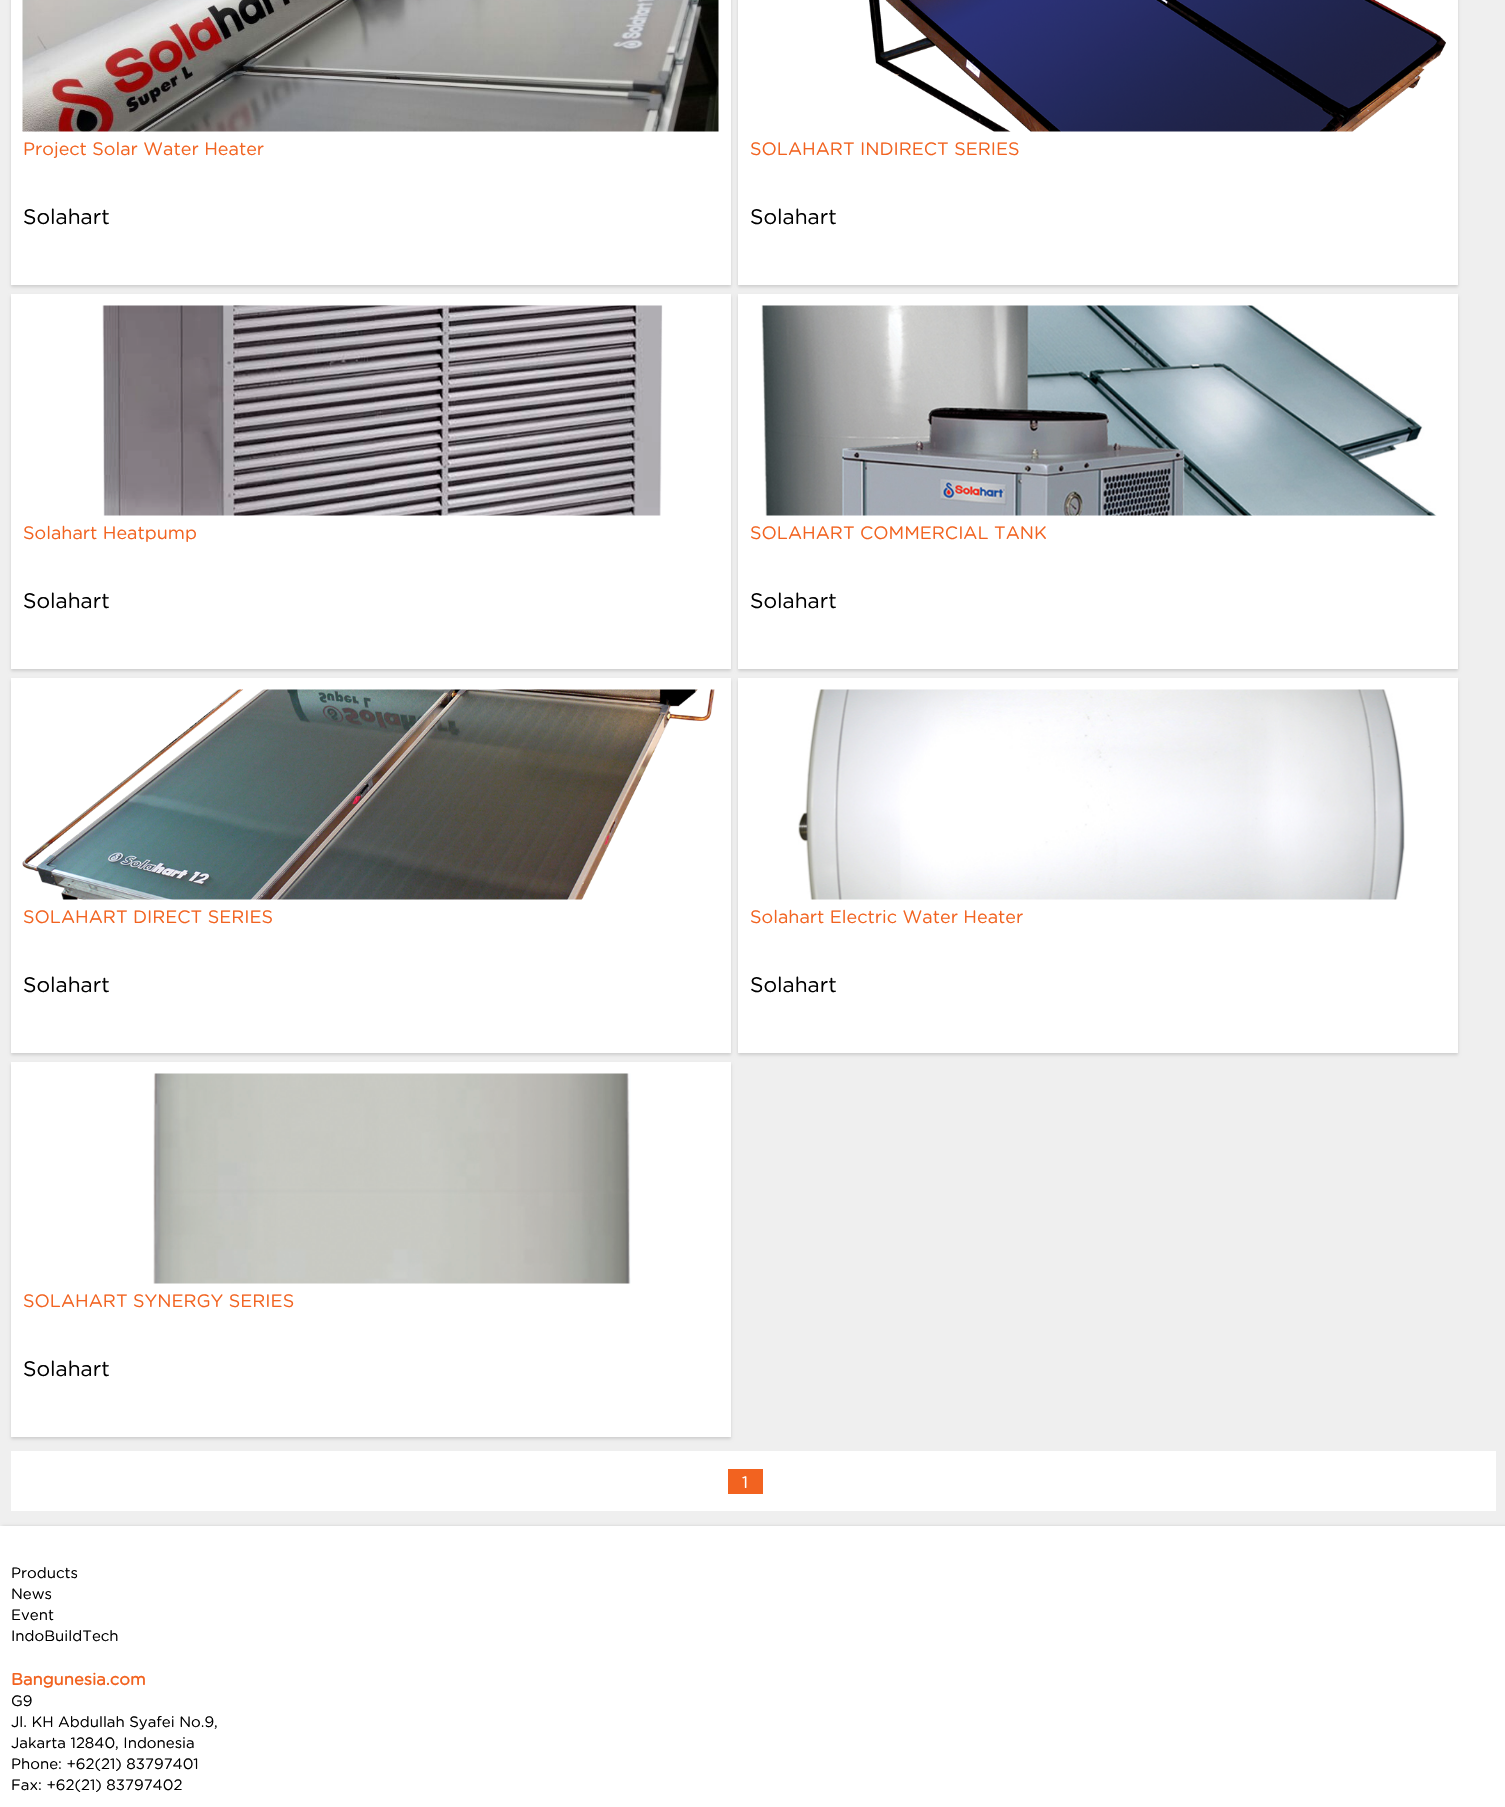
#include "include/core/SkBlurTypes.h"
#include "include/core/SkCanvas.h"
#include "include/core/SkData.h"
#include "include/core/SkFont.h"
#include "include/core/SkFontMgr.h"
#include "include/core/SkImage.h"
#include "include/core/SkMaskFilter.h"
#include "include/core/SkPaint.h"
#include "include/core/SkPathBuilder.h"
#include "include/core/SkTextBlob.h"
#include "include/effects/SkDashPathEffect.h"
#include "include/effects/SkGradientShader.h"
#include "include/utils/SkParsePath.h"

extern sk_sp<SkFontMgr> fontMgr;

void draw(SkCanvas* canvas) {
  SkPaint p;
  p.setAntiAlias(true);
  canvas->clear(SkColorSetRGB(239, 239, 239));
  p.setColor(SkColorSetRGB(206, 206, 206));
  p.setMaskFilter(SkMaskFilter::MakeBlur(kNormal_SkBlurStyle, 1.5f));
  canvas->drawRect(SkRect::MakeLTRB(11, -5, 731, 287), p);
  p.setMaskFilter(nullptr);
  p.setColor(SK_ColorWHITE);
  canvas->drawRect(SkRect::MakeLTRB(11, 0, 731, 285), p);
  canvas->drawImageRect(SkImages::DeferredFromEncodedData(SkData::MakeFromFileName("images/1.png")), SkRect::MakeLTRB(22, 0, 719, 132), SkSamplingOptions());
  p.setColor(SkColorSetRGB(206, 206, 206));
  p.setMaskFilter(SkMaskFilter::MakeBlur(kNormal_SkBlurStyle, 1.5f));
  canvas->drawRect(SkRect::MakeLTRB(738, -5, 1458, 287), p);
  p.setMaskFilter(nullptr);
  p.setColor(SK_ColorWHITE);
  canvas->drawRect(SkRect::MakeLTRB(738, 0, 1458, 285), p);
  canvas->drawImageRect(SkImages::DeferredFromEncodedData(SkData::MakeFromFileName("images/2.png")), SkRect::MakeLTRB(869, 0, 1446, 132), SkSamplingOptions());
  p.setColor(SkColorSetRGB(206, 206, 206));
  p.setMaskFilter(SkMaskFilter::MakeBlur(kNormal_SkBlurStyle, 1.5f));
  canvas->drawRect(SkRect::MakeLTRB(11, 296, 731, 671), p);
  p.setMaskFilter(nullptr);
  p.setColor(SK_ColorWHITE);
  canvas->drawRect(SkRect::MakeLTRB(11, 294, 731, 669), p);
  canvas->drawImageRect(SkImages::DeferredFromEncodedData(SkData::MakeFromFileName("images/3.png")), SkRect::MakeLTRB(102, 305, 663, 516), SkSamplingOptions());
  p.setColor(SkColorSetRGB(206, 206, 206));
  p.setMaskFilter(SkMaskFilter::MakeBlur(kNormal_SkBlurStyle, 1.5f));
  canvas->drawRect(SkRect::MakeLTRB(738, 296, 1458, 671), p);
  p.setMaskFilter(nullptr);
  p.setColor(SK_ColorWHITE);
  canvas->drawRect(SkRect::MakeLTRB(738, 294, 1458, 669), p);
  canvas->drawImageRect(SkImages::DeferredFromEncodedData(SkData::MakeFromFileName("images/4.png")), SkRect::MakeLTRB(761, 305, 1437, 516), SkSamplingOptions());
  p.setColor(SkColorSetRGB(206, 206, 206));
  p.setMaskFilter(SkMaskFilter::MakeBlur(kNormal_SkBlurStyle, 1.5f));
  canvas->drawRect(SkRect::MakeLTRB(11, 680, 731, 1055), p);
  p.setMaskFilter(nullptr);
  p.setColor(SK_ColorWHITE);
  canvas->drawRect(SkRect::MakeLTRB(11, 678, 731, 1053), p);
  canvas->drawImageRect(SkImages::DeferredFromEncodedData(SkData::MakeFromFileName("images/5.png")), SkRect::MakeLTRB(22, 689, 715, 900), SkSamplingOptions());
  p.setColor(SkColorSetRGB(206, 206, 206));
  p.setMaskFilter(SkMaskFilter::MakeBlur(kNormal_SkBlurStyle, 1.5f));
  canvas->drawRect(SkRect::MakeLTRB(738, 680, 1458, 1055), p);
  p.setMaskFilter(nullptr);
  p.setColor(SK_ColorWHITE);
  canvas->drawRect(SkRect::MakeLTRB(738, 678, 1458, 1053), p);
  canvas->drawImageRect(SkImages::DeferredFromEncodedData(SkData::MakeFromFileName("images/6.png")), SkRect::MakeLTRB(798, 689, 1405, 900), SkSamplingOptions());
  p.setColor(SkColorSetRGB(206, 206, 206));
  p.setMaskFilter(SkMaskFilter::MakeBlur(kNormal_SkBlurStyle, 1.5f));
  canvas->drawRect(SkRect::MakeLTRB(11, 1064, 731, 1439), p);
  p.setMaskFilter(nullptr);
  p.setColor(SK_ColorWHITE);
  canvas->drawRect(SkRect::MakeLTRB(11, 1062, 731, 1437), p);
  canvas->drawImageRect(SkImages::DeferredFromEncodedData(SkData::MakeFromFileName("images/7.png")), SkRect::MakeLTRB(153, 1073, 631, 1284), SkSamplingOptions());
  canvas->drawRect(SkRect::MakeLTRB(11, 1451, 1496, 1511), p);
  p.setColor(SkColorSetRGB(242, 99, 32));
  canvas->drawRect(SkRect::MakeLTRB(728, 1469, 763, 1494), p);
  p.setColor(SkColorSetRGB(206, 206, 206));
  p.setMaskFilter(SkMaskFilter::MakeBlur(kNormal_SkBlurStyle, 1.5f));
  canvas->drawRect(SkRect::MakeLTRB(2, 1526, 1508, 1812), p);
  p.setMaskFilter(nullptr);
  p.setColor(SK_ColorWHITE);
  canvas->drawRect(SkRect::MakeLTRB(0, 1526, 1505, 1807), p);
  SkFont font1(fontMgr->matchFamilyStyle("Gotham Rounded", SkFontStyle::Normal()), 18);
  font1.setSubpixel(true);
  p.setColor(SkColorSetRGB(242, 99, 32));
  canvas->drawString("Project Solar Water Heater", 23, 155, font1, p);
  SkFont font2(fontMgr->matchFamilyStyle("Gotham Rounded", SkFontStyle::Normal()), 21);
  font2.setSubpixel(true);
  p.setColor(SK_ColorBLACK);
  canvas->drawString("Solahart", 23, 224, font2, p);
  p.setColor(SkColorSetRGB(242, 99, 32));
  canvas->drawString("SOLAHART INDIRECT SERIES", 750, 155, font1, p);
  p.setColor(SK_ColorBLACK);
  canvas->drawString("Solahart", 750, 224, font2, p);
  p.setColor(SkColorSetRGB(242, 99, 32));
  canvas->drawString("Solahart Heatpump", 23, 539, font1, p);
  p.setColor(SK_ColorBLACK);
  canvas->drawString("Solahart", 23, 608, font2, p);
  p.setColor(SkColorSetRGB(242, 99, 32));
  canvas->drawString("SOLAHART COMMERCIAL TANK", 750, 539, font1, p);
  p.setColor(SK_ColorBLACK);
  canvas->drawString("Solahart", 750, 608, font2, p);
  p.setColor(SkColorSetRGB(242, 99, 32));
  canvas->drawString("SOLAHART DIRECT SERIES", 23, 923, font1, p);
  p.setColor(SK_ColorBLACK);
  canvas->drawString("Solahart", 23, 992, font2, p);
  p.setColor(SkColorSetRGB(242, 99, 32));
  canvas->drawString("Solahart Electric Water Heater", 750, 923, font1, p);
  p.setColor(SK_ColorBLACK);
  canvas->drawString("Solahart", 750, 992, font2, p);
  p.setColor(SkColorSetRGB(242, 99, 32));
  canvas->drawString("SOLAHART SYNERGY SERIES", 23, 1307, font1, p);
  p.setColor(SK_ColorBLACK);
  canvas->drawString("Solahart", 23, 1376, font2, p);
  SkFont font3(fontMgr->matchFamilyStyle("Gotham Rounded", SkFontStyle::Normal()), 16.5f);
  font3.setSubpixel(true);
  p.setColor(SK_ColorWHITE);
  canvas->drawString("1", 742, 1488, font3, p);
  SkFont font4(fontMgr->matchFamilyStyle("Gotham Rounded", SkFontStyle::Normal()), 15);
  font4.setSubpixel(true);
  p.setColor(SK_ColorBLACK);
  canvas->drawString("Products", 11, 1578, font4, p);
  canvas->drawString("News", 11, 1599, font4, p);
  canvas->drawString("Event", 11, 1620, font4, p);
  canvas->drawString("IndoBuildTech", 11, 1641, font4, p);
  SkFont font5(fontMgr->matchFamilyStyle("Gotham Rounded", SkFontStyle::Bold()), 16.5f);
  font5.setSubpixel(true);
  p.setColor(SkColorSetRGB(242, 99, 32));
  canvas->drawString("Bangunesia.com", 11, 1685, font5, p);
  p.setColor(SK_ColorBLACK);
  canvas->drawString("G9", 11, 1706, font4, p);
  canvas->drawString("Jl. KH Abdullah Syafei No.9,", 11, 1727, font4, p);
  canvas->drawString("Jakarta 12840, Indonesia", 11, 1748, font4, p);
  canvas->drawString("Phone: +62(21) 83797401", 11, 1769, font4, p);
  canvas->drawString("Fax: +62(21) 83797402", 11, 1790, font4, p);
}
